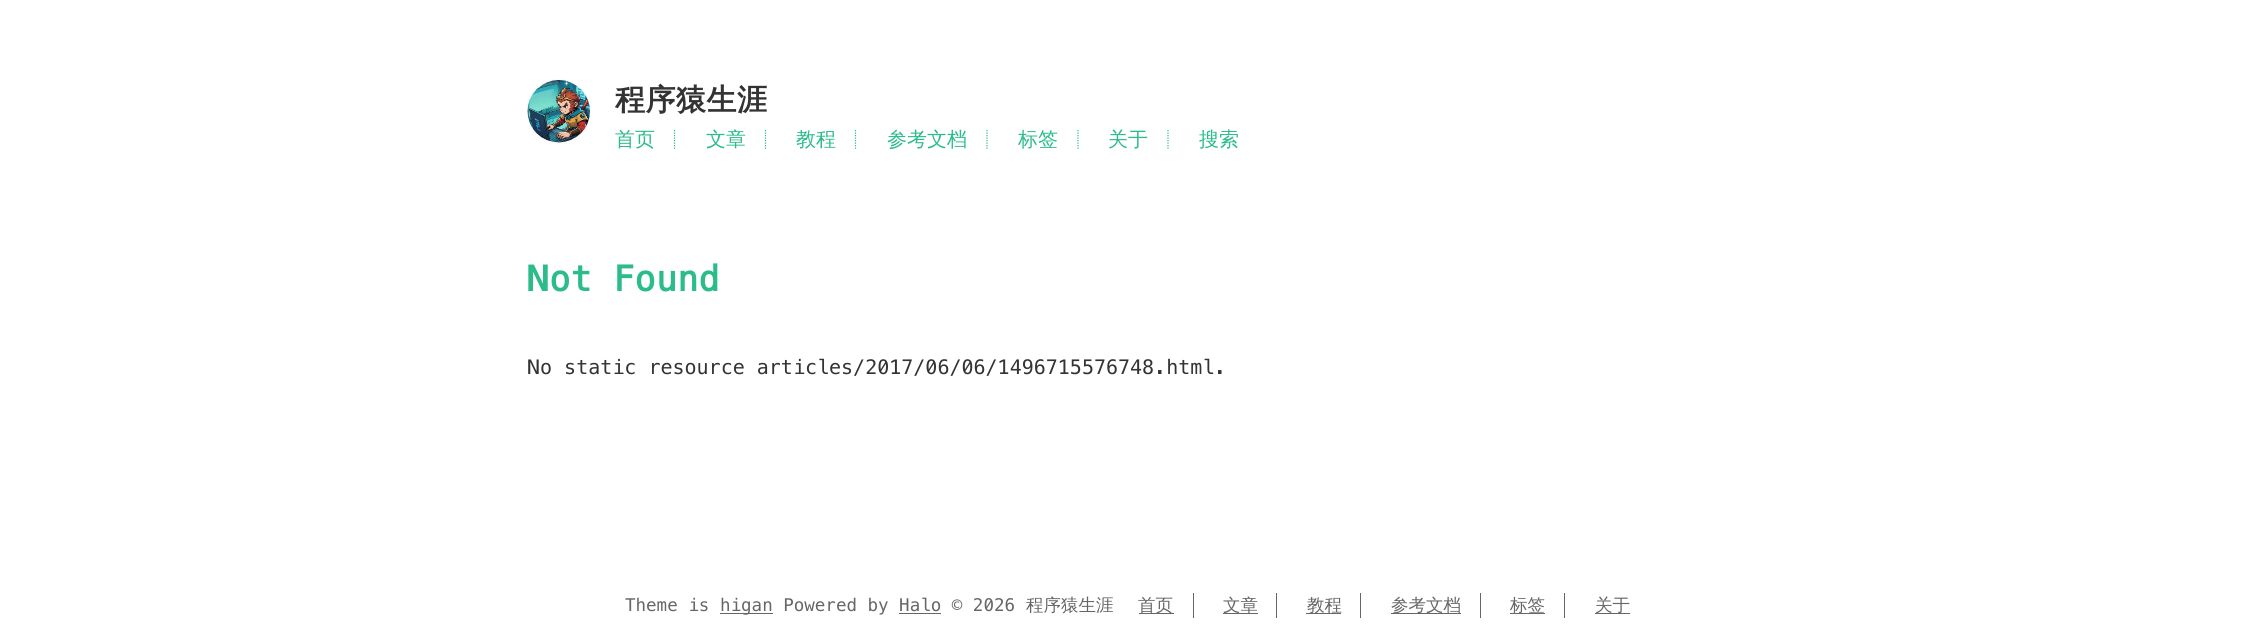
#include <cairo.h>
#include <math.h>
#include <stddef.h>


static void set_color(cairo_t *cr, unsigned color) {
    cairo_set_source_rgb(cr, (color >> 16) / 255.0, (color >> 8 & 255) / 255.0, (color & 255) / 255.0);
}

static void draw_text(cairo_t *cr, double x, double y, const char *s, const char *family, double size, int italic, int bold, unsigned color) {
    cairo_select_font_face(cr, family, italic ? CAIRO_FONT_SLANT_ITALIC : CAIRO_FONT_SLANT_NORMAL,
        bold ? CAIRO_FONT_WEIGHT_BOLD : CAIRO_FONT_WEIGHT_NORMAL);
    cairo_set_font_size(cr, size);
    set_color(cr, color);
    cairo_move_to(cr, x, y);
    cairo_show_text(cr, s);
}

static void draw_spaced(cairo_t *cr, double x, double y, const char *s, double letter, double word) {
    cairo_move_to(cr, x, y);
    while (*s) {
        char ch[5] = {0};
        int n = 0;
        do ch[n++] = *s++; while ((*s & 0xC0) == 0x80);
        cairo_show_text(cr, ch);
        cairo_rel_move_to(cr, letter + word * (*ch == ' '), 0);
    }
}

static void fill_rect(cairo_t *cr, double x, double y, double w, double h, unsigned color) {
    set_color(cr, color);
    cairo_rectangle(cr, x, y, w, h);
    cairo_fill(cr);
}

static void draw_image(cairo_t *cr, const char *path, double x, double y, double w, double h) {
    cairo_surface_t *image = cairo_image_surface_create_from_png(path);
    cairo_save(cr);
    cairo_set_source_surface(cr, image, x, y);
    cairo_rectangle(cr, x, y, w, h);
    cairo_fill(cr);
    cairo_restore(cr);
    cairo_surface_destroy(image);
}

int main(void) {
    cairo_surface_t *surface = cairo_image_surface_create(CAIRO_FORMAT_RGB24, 2254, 642);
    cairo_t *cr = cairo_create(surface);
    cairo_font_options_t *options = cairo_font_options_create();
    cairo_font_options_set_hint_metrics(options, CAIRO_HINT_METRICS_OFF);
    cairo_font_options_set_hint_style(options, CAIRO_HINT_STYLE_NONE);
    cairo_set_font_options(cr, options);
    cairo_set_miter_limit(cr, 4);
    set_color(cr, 0xFFFFFF);
    cairo_paint(cr);
    cairo_arc(cr, 558.5, 111.5, 32, 0, 2 * M_PI);
    set_color(cr, 0xFAFAFA);
    cairo_set_line_width(cr, 1);
    cairo_stroke(cr);
    draw_image(cr, "assets/img1.png", 527, 80, 64, 63);
    cairo_select_font_face(cr, "WenQuanYi Zen Hei", CAIRO_FONT_SLANT_NORMAL, CAIRO_FONT_WEIGHT_BOLD);
    cairo_set_font_size(cr, 30);
    set_color(cr, 0x333333);
    draw_spaced(cr, 615, 110, "程序猿生涯", 0.5, 0);
    cairo_new_path(cr);
    cairo_move_to(cr, 674.5, 130);
    cairo_line_to(cr, 674.5, 150);
    set_color(cr, 0x2BBC8A);
    cairo_set_line_width(cr, 1.2);
    cairo_set_dash(cr, (double[]){1.25, 1.25}, 2, 0);
    cairo_stroke(cr);
    draw_text(cr, 615, 146, "首页", "WenQuanYi Zen Hei Medium", 20, 0, 0, 0x2BBC8A);
    cairo_new_path(cr);
    cairo_move_to(cr, 765.5, 130);
    cairo_line_to(cr, 765.5, 150);
    cairo_stroke(cr);
    draw_text(cr, 706, 146, "文章", "WenQuanYi Zen Hei Medium", 20, 0, 0, 0x2BBC8A);
    cairo_new_path(cr);
    cairo_move_to(cr, 855.5, 130);
    cairo_line_to(cr, 855.5, 150);
    cairo_stroke(cr);
    draw_text(cr, 796, 146, "教程", "WenQuanYi Zen Hei Medium", 20, 0, 0, 0x2BBC8A);
    cairo_new_path(cr);
    cairo_move_to(cr, 987, 130);
    cairo_line_to(cr, 987, 150);
    cairo_stroke(cr);
    draw_text(cr, 887, 146, "参考文档", "WenQuanYi Zen Hei Medium", 20, 0, 0, 0x2BBC8A);
    cairo_new_path(cr);
    cairo_move_to(cr, 1078, 130);
    cairo_line_to(cr, 1078, 150);
    cairo_stroke(cr);
    draw_text(cr, 1018, 146, "标签", "WenQuanYi Zen Hei Medium", 20, 0, 0, 0x2BBC8A);
    cairo_new_path(cr);
    cairo_move_to(cr, 1168, 130);
    cairo_line_to(cr, 1168, 150);
    cairo_stroke(cr);
    draw_text(cr, 1108, 146, "关于", "WenQuanYi Zen Hei Medium", 20, 0, 0, 0x2BBC8A);
    draw_text(cr, 1199, 146, "搜索", "WenQuanYi Zen Hei Medium", 20, 0, 0, 0x2BBC8A);
    cairo_select_font_face(cr, "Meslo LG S", CAIRO_FONT_SLANT_NORMAL, CAIRO_FONT_WEIGHT_BOLD);
    cairo_set_font_size(cr, 35);
    draw_spaced(cr, 528, 291, "Not Found", 0.25, 0);
    draw_text(cr, 528, 374, "No static resource articles/2017/06/06/1496715576748.html.", "Meslo LG S", 20, 0, 0, 0x333333);
    draw_text(cr, 625, 611, "Theme is", "Meslo LG S", 17.5, 0, 0, 0x666666);
    fill_rect(cr, 720, 613, 53, 1, 0x666666);
    draw_text(cr, 720, 611, "higan Powered by Halo © 2026", "Meslo LG S", 17.5, 0, 0, 0x666666);
    fill_rect(cr, 899, 613, 42, 1, 0x666666);
    draw_text(cr, 1026, 611, "程序猿生涯", "WenQuanYi Zen Hei Medium", 17.5, 0, 0, 0x666666);
    fill_rect(cr, 1193, 593, 1, 25, 0x666666);
    fill_rect(cr, 1139, 613, 35, 1, 0x666666);
    draw_text(cr, 1138, 611, "首页", "WenQuanYi Zen Hei Medium", 17.5, 0, 0, 0x666666);
    fill_rect(cr, 1276, 593, 1, 25, 0x666666);
    fill_rect(cr, 1223, 613, 35, 1, 0x666666);
    draw_text(cr, 1223, 611, "文章", "WenQuanYi Zen Hei Medium", 17.5, 0, 0, 0x666666);
    fill_rect(cr, 1360, 593, 1, 25, 0x666666);
    fill_rect(cr, 1306, 613, 35, 1, 0x666666);
    draw_text(cr, 1307, 611, "教程", "WenQuanYi Zen Hei Medium", 17.5, 0, 0, 0x666666);
    fill_rect(cr, 1480, 593, 1, 25, 0x666666);
    fill_rect(cr, 1391, 613, 70, 1, 0x666666);
    draw_text(cr, 1391, 611, "参考文档", "WenQuanYi Zen Hei Medium", 17.5, 0, 0, 0x666666);
    fill_rect(cr, 1564, 593, 1, 25, 0x666666);
    fill_rect(cr, 1510, 613, 35, 1, 0x666666);
    draw_text(cr, 1510, 611, "标签", "WenQuanYi Zen Hei Medium", 17.5, 0, 0, 0x666666);
    fill_rect(cr, 1595, 613, 35, 1, 0x666666);
    draw_text(cr, 1595, 611, "关于", "WenQuanYi Zen Hei Medium", 17.5, 0, 0, 0x666666);
    cairo_surface_write_to_png(surface, "output.png");
    cairo_font_options_destroy(options);
    cairo_destroy(cr);
    cairo_surface_destroy(surface);
    return 0;
}
